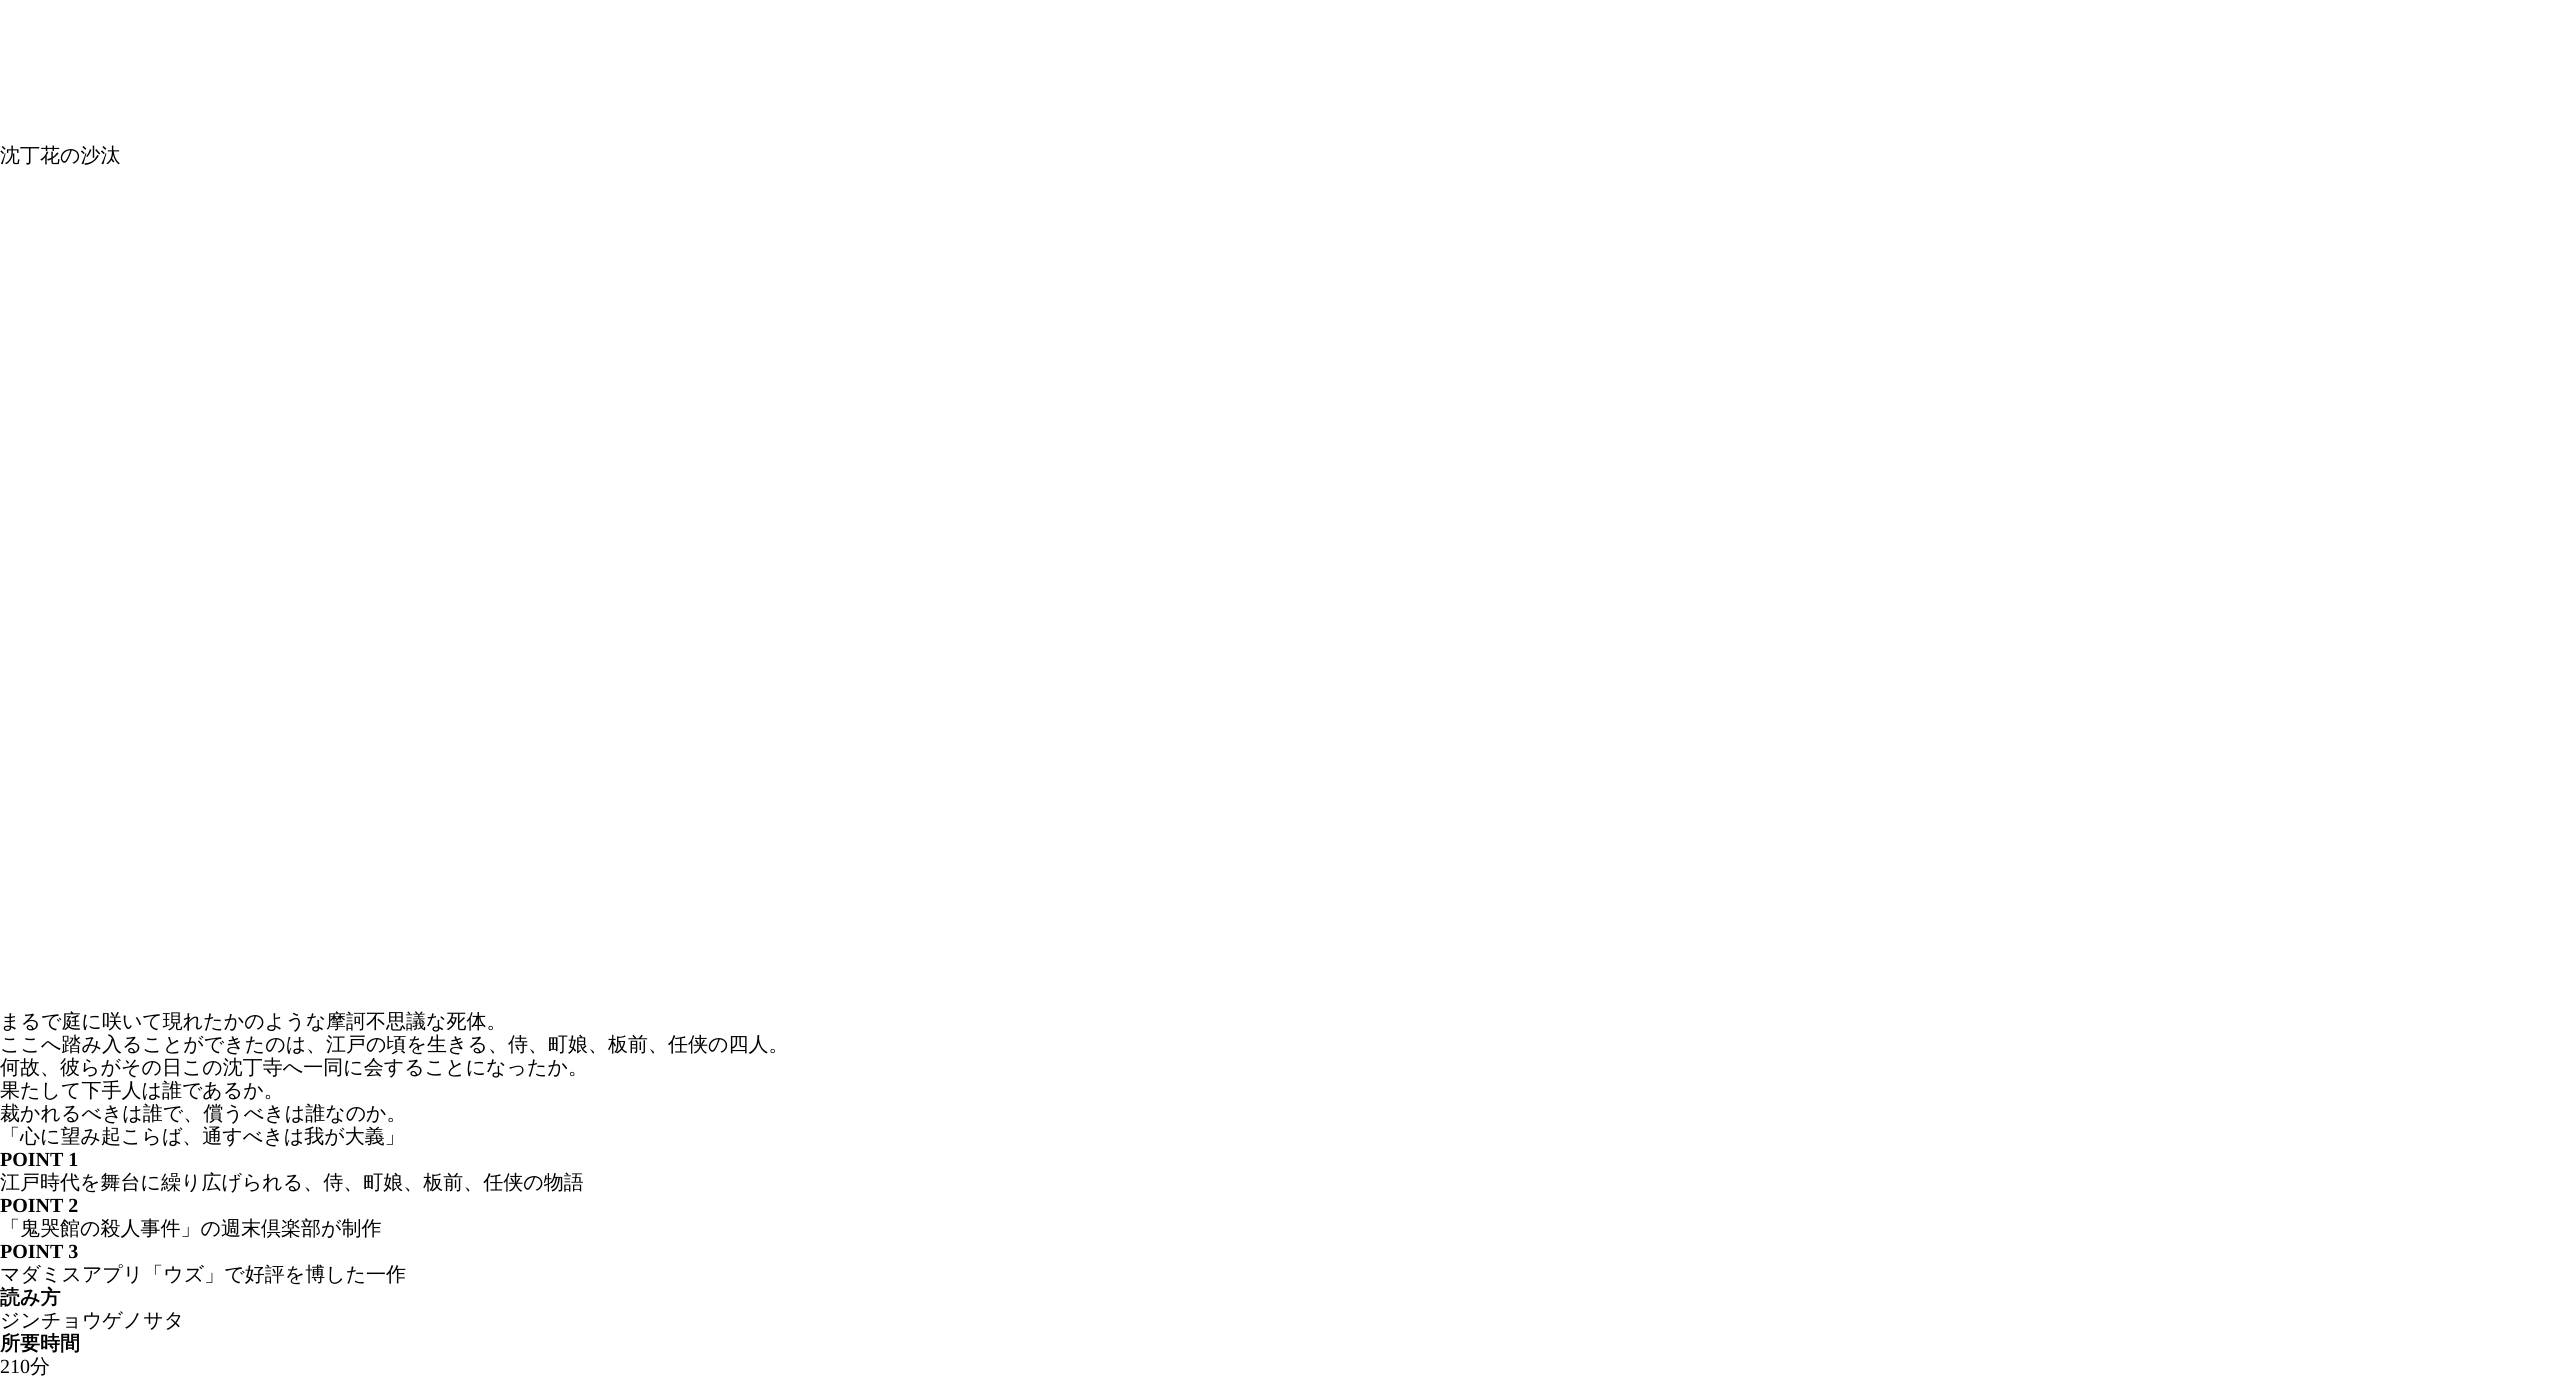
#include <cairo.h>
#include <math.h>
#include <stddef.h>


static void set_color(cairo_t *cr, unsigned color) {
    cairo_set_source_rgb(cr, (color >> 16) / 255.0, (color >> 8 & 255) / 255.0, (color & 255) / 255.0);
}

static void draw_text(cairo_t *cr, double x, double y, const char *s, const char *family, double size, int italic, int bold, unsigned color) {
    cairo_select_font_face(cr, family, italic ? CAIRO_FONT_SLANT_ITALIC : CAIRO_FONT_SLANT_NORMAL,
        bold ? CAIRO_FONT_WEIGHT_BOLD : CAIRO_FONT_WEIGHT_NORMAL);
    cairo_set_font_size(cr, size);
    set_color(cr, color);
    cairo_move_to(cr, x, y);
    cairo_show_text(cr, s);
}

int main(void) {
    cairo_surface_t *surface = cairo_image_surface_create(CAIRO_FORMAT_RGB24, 2574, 1377);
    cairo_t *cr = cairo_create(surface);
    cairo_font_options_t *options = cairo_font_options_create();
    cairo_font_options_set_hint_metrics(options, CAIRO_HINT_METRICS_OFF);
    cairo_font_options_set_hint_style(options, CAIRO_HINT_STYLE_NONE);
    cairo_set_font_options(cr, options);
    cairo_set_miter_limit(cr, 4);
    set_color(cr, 0xFFFFFF);
    cairo_paint(cr);
    draw_text(cr, 0, 162, "沈丁花の沙汰", "WenQuanYi Zen Hei Medium", 20, 0, 0, 0x000000);
    draw_text(cr, 0, 1028, "まるで庭に咲いて現れたかのような摩訶不思議な死体。", "WenQuanYi Zen Hei Medium", 20, 0, 0, 0x000000);
    draw_text(cr, 0, 1051, "ここへ踏み入ることができたのは、江戸の頃を生きる、侍、町娘、板前、任侠の四人。", "WenQuanYi Zen Hei Medium", 20, 0, 0, 0x000000);
    draw_text(cr, 0, 1074, "何故、彼らがその日この沈丁寺へ一同に会することになったか。", "WenQuanYi Zen Hei Medium", 20, 0, 0, 0x000000);
    draw_text(cr, 0, 1097, "果たして下手人は誰であるか。", "WenQuanYi Zen Hei Medium", 20, 0, 0, 0x000000);
    draw_text(cr, 0, 1120, "裁かれるべきは誰で、償うべきは誰なのか。", "WenQuanYi Zen Hei Medium", 20, 0, 0, 0x000000);
    draw_text(cr, 0, 1143, "「心に望み起こらば、通すべきは我が大義」", "WenQuanYi Zen Hei Medium", 20, 0, 0, 0x000000);
    draw_text(cr, 0, 1166, "POINT 1", "Liberation Serif", 20, 0, 1, 0x000000);
    draw_text(cr, 0, 1189, "江戸時代を舞台に繰り広げられる、侍、町娘、板前、任侠の物語", "WenQuanYi Zen Hei Medium", 20, 0, 0, 0x000000);
    draw_text(cr, 0, 1212, "POINT 2", "Liberation Serif", 20, 0, 1, 0x000000);
    draw_text(cr, 0, 1235, "「鬼哭館の殺人事件」の週末倶楽部が制作", "WenQuanYi Zen Hei Medium", 20, 0, 0, 0x000000);
    draw_text(cr, 0, 1258, "POINT 3", "Liberation Serif", 20, 0, 1, 0x000000);
    draw_text(cr, 0, 1281, "マダミスアプリ「ウズ」で好評を博した一作", "WenQuanYi Zen Hei Medium", 20, 0, 0, 0x000000);
    draw_text(cr, 0, 1304, "読み方", "WenQuanYi Zen Hei", 20, 0, 1, 0x000000);
    draw_text(cr, 0, 1327, "ジンチョウゲノサタ", "WenQuanYi Zen Hei Medium", 20, 0, 0, 0x000000);
    draw_text(cr, 0, 1350, "所要時間", "WenQuanYi Zen Hei", 20, 0, 1, 0x000000);
    draw_text(cr, 0, 1373, "210", "Liberation Serif", 20, 0, 0, 0x000000);
    draw_text(cr, 30, 1373, "分", "WenQuanYi Zen Hei Medium", 20, 0, 0, 0x000000);
    cairo_surface_write_to_png(surface, "output.png");
    cairo_font_options_destroy(options);
    cairo_destroy(cr);
    cairo_surface_destroy(surface);
    return 0;
}
